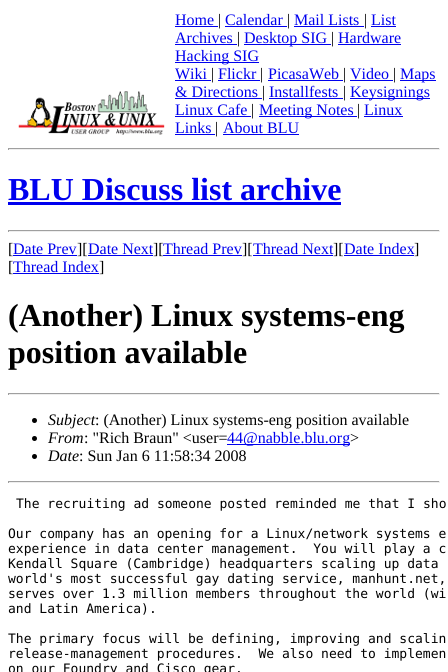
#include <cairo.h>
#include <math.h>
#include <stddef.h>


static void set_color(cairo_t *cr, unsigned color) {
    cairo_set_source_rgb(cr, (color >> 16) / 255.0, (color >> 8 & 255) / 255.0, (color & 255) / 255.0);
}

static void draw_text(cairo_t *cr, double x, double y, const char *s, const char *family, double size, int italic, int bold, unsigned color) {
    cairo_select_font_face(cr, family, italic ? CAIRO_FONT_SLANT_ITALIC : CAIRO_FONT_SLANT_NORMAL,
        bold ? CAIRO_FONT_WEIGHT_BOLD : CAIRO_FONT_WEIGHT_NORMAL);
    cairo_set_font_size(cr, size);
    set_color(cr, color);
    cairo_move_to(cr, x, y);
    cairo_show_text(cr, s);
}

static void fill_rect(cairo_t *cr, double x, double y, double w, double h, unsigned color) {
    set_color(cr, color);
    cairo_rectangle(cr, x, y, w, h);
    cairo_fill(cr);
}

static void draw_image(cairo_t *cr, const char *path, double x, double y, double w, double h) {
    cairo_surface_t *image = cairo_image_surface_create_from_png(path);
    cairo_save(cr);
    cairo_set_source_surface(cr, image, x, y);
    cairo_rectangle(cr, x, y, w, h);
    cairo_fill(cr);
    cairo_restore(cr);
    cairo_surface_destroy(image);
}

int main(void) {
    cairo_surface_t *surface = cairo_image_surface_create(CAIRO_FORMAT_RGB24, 448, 672);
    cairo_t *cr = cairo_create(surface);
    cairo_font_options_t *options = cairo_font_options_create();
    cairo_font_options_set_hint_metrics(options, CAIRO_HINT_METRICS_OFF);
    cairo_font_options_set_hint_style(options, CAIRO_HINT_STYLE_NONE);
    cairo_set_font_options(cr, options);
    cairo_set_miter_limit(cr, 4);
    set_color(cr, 0xFFFFFF);
    cairo_paint(cr);
    draw_image(cr, "assets/img1.png", 18, 91, 147, 44);
    draw_text(cr, 175, 25, "Home", "Liberation Serif", 16, 0, 0, 0x0000EE);
    fill_rect(cr, 175, 26, 43, 1, 0x0000EE);
    draw_text(cr, 218, 25, "|", "Liberation Serif", 16, 0, 0, 0x000000);
    draw_text(cr, 225, 25, "Calendar", "Liberation Serif", 16, 0, 0, 0x0000EE);
    fill_rect(cr, 225, 26, 62, 1, 0x0000EE);
    draw_text(cr, 287, 25, "|", "Liberation Serif", 16, 0, 0, 0x000000);
    draw_text(cr, 294, 25, "Mail Lists", "Liberation Serif", 16, 0, 0, 0x0000EE);
    fill_rect(cr, 294, 26, 70, 1, 0x0000EE);
    draw_text(cr, 364, 25, "|", "Liberation Serif", 16, 0, 0, 0x000000);
    draw_text(cr, 371, 25, "List", "Liberation Serif", 16, 0, 0, 0x0000EE);
    fill_rect(cr, 371, 26, 25, 1, 0x0000EE);
    draw_text(cr, 175, 43, "Archives", "Liberation Serif", 16, 0, 0, 0x0000EE);
    fill_rect(cr, 175, 44, 62, 1, 0x0000EE);
    draw_text(cr, 237, 43, "|", "Liberation Serif", 16, 0, 0, 0x000000);
    fill_rect(cr, 244, 44, 87, 1, 0x0000EE);
    draw_text(cr, 244, 43, "Desktop SIG", "Liberation Serif", 16, 0, 0, 0x0000EE);
    draw_text(cr, 331, 43, "|", "Liberation Serif", 16, 0, 0, 0x000000);
    draw_text(cr, 338, 43, "Hardware", "Liberation Serif", 16, 0, 0, 0x0000EE);
    fill_rect(cr, 338, 44, 63, 1, 0x0000EE);
    fill_rect(cr, 175, 62, 84, 1, 0x0000EE);
    draw_text(cr, 175, 61, "Hacking SIG", "Liberation Serif", 16, 0, 0, 0x0000EE);
    draw_text(cr, 175, 79, "Wiki", "Liberation Serif", 16, 0, 0, 0x0000EE);
    fill_rect(cr, 175, 80, 36, 1, 0x0000EE);
    draw_text(cr, 211, 79, "|", "Liberation Serif", 16, 0, 0, 0x000000);
    draw_text(cr, 218, 79, "Flickr", "Liberation Serif", 16, 0, 0, 0x0000EE);
    fill_rect(cr, 218, 80, 42, 1, 0x0000EE);
    draw_text(cr, 260, 79, "|", "Liberation Serif", 16, 0, 0, 0x000000);
    draw_text(cr, 268, 79, "PicasaWeb", "Liberation Serif", 16, 0, 0, 0x0000EE);
    fill_rect(cr, 268, 80, 75, 1, 0x0000EE);
    draw_text(cr, 343, 79, "|", "Liberation Serif", 16, 0, 0, 0x000000);
    draw_text(cr, 350, 79, "Video", "Liberation Serif", 16, 0, 0, 0x0000EE);
    fill_rect(cr, 350, 80, 43, 1, 0x0000EE);
    draw_text(cr, 393, 79, "|", "Liberation Serif", 16, 0, 0, 0x000000);
    fill_rect(cr, 400, 80, 36, 1, 0x0000EE);
    draw_text(cr, 400, 79, "Maps", "Liberation Serif", 16, 0, 0, 0x0000EE);
    draw_text(cr, 175, 97, "& Directions", "Liberation Serif", 16, 0, 0, 0x0000EE);
    fill_rect(cr, 175, 98, 87, 1, 0x0000EE);
    draw_text(cr, 262, 97, "|", "Liberation Serif", 16, 0, 0, 0x000000);
    draw_text(cr, 269, 97, "Installfests", "Liberation Serif", 16, 0, 0, 0x0000EE);
    fill_rect(cr, 269, 98, 74, 1, 0x0000EE);
    draw_text(cr, 343, 97, "|", "Liberation Serif", 16, 0, 0, 0x000000);
    fill_rect(cr, 350, 98, 80, 1, 0x0000EE);
    draw_text(cr, 350, 97, "Keysignings", "Liberation Serif", 16, 0, 0, 0x0000EE);
    draw_text(cr, 175, 115, "Linux Cafe", "Liberation Serif", 16, 0, 0, 0x0000EE);
    fill_rect(cr, 175, 116, 76, 1, 0x0000EE);
    draw_text(cr, 251, 115, "|", "Liberation Serif", 16, 0, 0, 0x000000);
    fill_rect(cr, 259, 116, 98, 1, 0x0000EE);
    draw_text(cr, 259, 115, "Meeting Notes", "Liberation Serif", 16, 0, 0, 0x0000EE);
    draw_text(cr, 357, 115, "|", "Liberation Serif", 16, 0, 0, 0x000000);
    draw_text(cr, 364, 115, "Linux", "Liberation Serif", 16, 0, 0, 0x0000EE);
    fill_rect(cr, 364, 116, 39, 1, 0x0000EE);
    draw_text(cr, 175, 133, "Links", "Liberation Serif", 16, 0, 0, 0x0000EE);
    fill_rect(cr, 175, 134, 40, 1, 0x0000EE);
    draw_text(cr, 215, 133, "|", "Liberation Serif", 16, 0, 0, 0x000000);
    draw_text(cr, 223, 133, "About BLU", "Liberation Serif", 16, 0, 0, 0x0000EE);
    fill_rect(cr, 223, 134, 76, 1, 0x0000EE);
    fill_rect(cr, 8, 148, 432, 1, 0x9F9F9F);
    fill_rect(cr, 439, 148, 1, 2, 0xEEEEEE);
    fill_rect(cr, 8, 149, 432, 1, 0xEEEEEE);
    fill_rect(cr, 8, 148, 1, 2, 0x9F9F9F);
    draw_text(cr, 8, 200, "BLU Discuss list archive", "Liberation Serif", 32, 0, 1, 0x0000EE);
    fill_rect(cr, 8, 202, 333, 3, 0x0000EE);
    fill_rect(cr, 8, 230, 432, 1, 0x9F9F9F);
    fill_rect(cr, 439, 230, 1, 2, 0xEEEEEE);
    fill_rect(cr, 8, 231, 432, 1, 0xEEEEEE);
    fill_rect(cr, 8, 230, 1, 2, 0x9F9F9F);
    draw_text(cr, 8, 254, "[", "Liberation Serif", 16, 0, 0, 0x000000);
    draw_text(cr, 13, 254, "Date Prev", "Liberation Serif", 16, 0, 0, 0x0000EE);
    fill_rect(cr, 13, 255, 64, 1, 0x0000EE);
    draw_text(cr, 77, 254, "][", "Liberation Serif", 16, 0, 0, 0x000000);
    draw_text(cr, 88, 254, "Date Next", "Liberation Serif", 16, 0, 0, 0x0000EE);
    fill_rect(cr, 88, 255, 65, 1, 0x0000EE);
    draw_text(cr, 153, 254, "][", "Liberation Serif", 16, 0, 0, 0x000000);
    draw_text(cr, 163, 254, "Thread Prev", "Liberation Serif", 16, 0, 0, 0x0000EE);
    fill_rect(cr, 163, 255, 79, 1, 0x0000EE);
    draw_text(cr, 242, 254, "][", "Liberation Serif", 16, 0, 0, 0x000000);
    draw_text(cr, 253, 254, "Thread Next", "Liberation Serif", 16, 0, 0, 0x0000EE);
    fill_rect(cr, 253, 255, 80, 1, 0x0000EE);
    draw_text(cr, 333, 254, "][", "Liberation Serif", 16, 0, 0, 0x000000);
    draw_text(cr, 344, 254, "Date Index", "Liberation Serif", 16, 0, 0, 0x0000EE);
    fill_rect(cr, 344, 255, 70, 1, 0x0000EE);
    draw_text(cr, 414, 254, "]", "Liberation Serif", 16, 0, 0, 0x000000);
    draw_text(cr, 8, 272, "[", "Liberation Serif", 16, 0, 0, 0x000000);
    draw_text(cr, 13, 272, "Thread Index", "Liberation Serif", 16, 0, 0, 0x0000EE);
    fill_rect(cr, 13, 273, 86, 1, 0x0000EE);
    draw_text(cr, 99, 272, "]", "Liberation Serif", 16, 0, 0, 0x000000);
    draw_text(cr, 8, 326, "(Another) Linux systems-eng", "Liberation Serif", 32, 0, 1, 0x000000);
    draw_text(cr, 8, 363, "position available", "Liberation Serif", 32, 0, 1, 0x000000);
    fill_rect(cr, 8, 393, 432, 1, 0x9F9F9F);
    fill_rect(cr, 439, 393, 1, 2, 0xEEEEEE);
    fill_rect(cr, 8, 394, 432, 1, 0xEEEEEE);
    fill_rect(cr, 8, 393, 1, 2, 0x9F9F9F);
    set_color(cr, 0x000000);
    cairo_new_path(cr);
    cairo_arc(cr, 34.5, 420.5, 2.5, 0, 2 * M_PI);
    cairo_fill(cr);
    draw_text(cr, 48, 425, "Subject", "Liberation Serif", 16, 1, 0, 0x000000);
    draw_text(cr, 95, 425, ": (Another) Linux systems-eng position available", "Liberation Serif", 16, 0, 0, 0x000000);
    cairo_new_path(cr);
    cairo_arc(cr, 34.5, 438.5, 2.5, 0, 2 * M_PI);
    cairo_fill(cr);
    draw_text(cr, 48, 443, "From", "Liberation Serif", 16, 1, 0, 0x000000);
    draw_text(cr, 84, 443, ": \"Rich Braun\" <user=", "Liberation Serif", 16, 0, 0, 0x000000);
    fill_rect(cr, 227, 444, 123, 1, 0x0000EE);
    draw_text(cr, 227, 443, "44@nabble.blu.org", "Liberation Serif", 16, 0, 0, 0x0000EE);
    draw_text(cr, 350, 443, ">", "Liberation Serif", 16, 0, 0, 0x000000);
    cairo_new_path(cr);
    cairo_arc(cr, 34.5, 456.5, 2.5, 0, 2 * M_PI);
    cairo_fill(cr);
    draw_text(cr, 48, 461, "Date", "Liberation Serif", 16, 1, 0, 0x000000);
    draw_text(cr, 79, 461, ": Sun Jan 6 11:58:34 2008", "Liberation Serif", 16, 0, 0, 0x000000);
    fill_rect(cr, 8, 481, 432, 1, 0x9F9F9F);
    fill_rect(cr, 439, 481, 1, 2, 0xEEEEEE);
    fill_rect(cr, 8, 482, 432, 1, 0xEEEEEE);
    fill_rect(cr, 8, 481, 1, 2, 0x9F9F9F);
    draw_text(cr, 16, 508, "The recruiting ad someone posted reminded me that I sho", "DejaVu Sans Mono", 13, 0, 0, 0x000000);
    draw_text(cr, 8, 538, "Our company has an opening for a Linux/network systems e", "DejaVu Sans Mono", 13, 0, 0, 0x000000);
    draw_text(cr, 8, 553, "experience in data center management.  You will play a c", "DejaVu Sans Mono", 13, 0, 0, 0x000000);
    draw_text(cr, 8, 568, "Kendall Square (Cambridge) headquarters scaling up data", "DejaVu Sans Mono", 13, 0, 0, 0x000000);
    draw_text(cr, 8, 583, "world's most successful gay dating service, manhunt.net,", "DejaVu Sans Mono", 13, 0, 0, 0x000000);
    draw_text(cr, 8, 598, "serves over 1.3 million members throughout the world (wi", "DejaVu Sans Mono", 13, 0, 0, 0x000000);
    draw_text(cr, 8, 613, "and Latin America).", "DejaVu Sans Mono", 13, 0, 0, 0x000000);
    draw_text(cr, 8, 643, "The primary focus will be defining, improving and scalin", "DejaVu Sans Mono", 13, 0, 0, 0x000000);
    draw_text(cr, 8, 658, "release-management procedures.  We also need to implemen", "DejaVu Sans Mono", 13, 0, 0, 0x000000);
    draw_text(cr, 8, 673, "on our Foundry and Cisco gear.", "DejaVu Sans Mono", 13, 0, 0, 0x000000);
    cairo_surface_write_to_png(surface, "output.png");
    cairo_font_options_destroy(options);
    cairo_destroy(cr);
    cairo_surface_destroy(surface);
    return 0;
}
